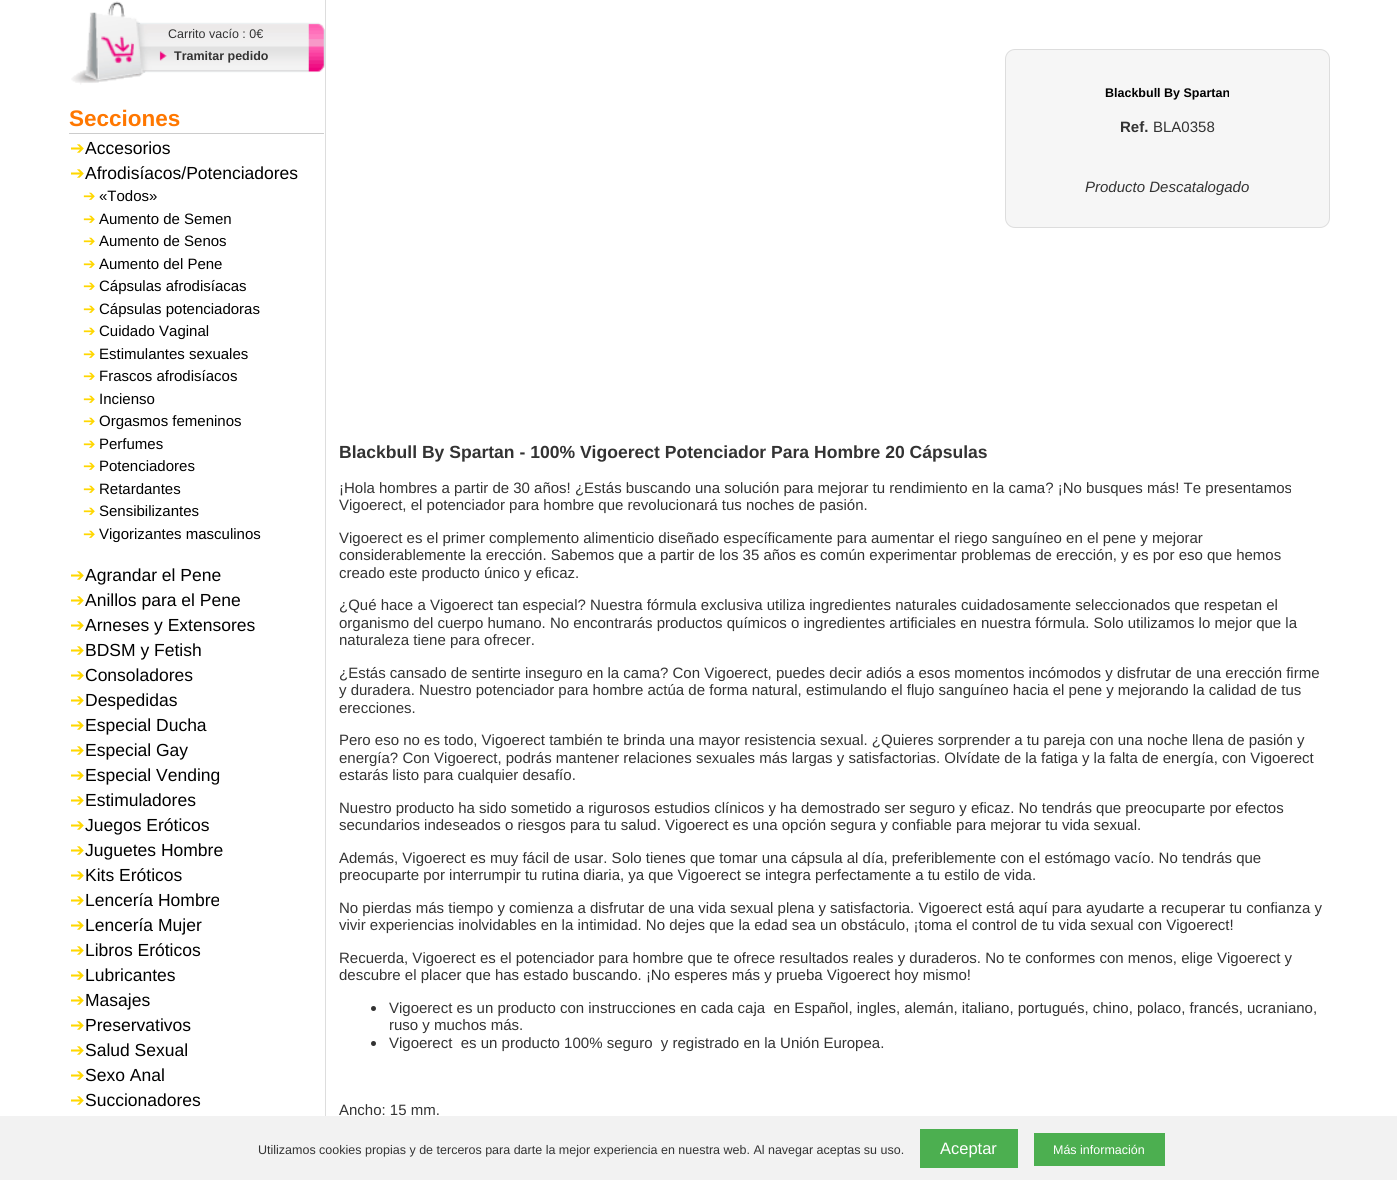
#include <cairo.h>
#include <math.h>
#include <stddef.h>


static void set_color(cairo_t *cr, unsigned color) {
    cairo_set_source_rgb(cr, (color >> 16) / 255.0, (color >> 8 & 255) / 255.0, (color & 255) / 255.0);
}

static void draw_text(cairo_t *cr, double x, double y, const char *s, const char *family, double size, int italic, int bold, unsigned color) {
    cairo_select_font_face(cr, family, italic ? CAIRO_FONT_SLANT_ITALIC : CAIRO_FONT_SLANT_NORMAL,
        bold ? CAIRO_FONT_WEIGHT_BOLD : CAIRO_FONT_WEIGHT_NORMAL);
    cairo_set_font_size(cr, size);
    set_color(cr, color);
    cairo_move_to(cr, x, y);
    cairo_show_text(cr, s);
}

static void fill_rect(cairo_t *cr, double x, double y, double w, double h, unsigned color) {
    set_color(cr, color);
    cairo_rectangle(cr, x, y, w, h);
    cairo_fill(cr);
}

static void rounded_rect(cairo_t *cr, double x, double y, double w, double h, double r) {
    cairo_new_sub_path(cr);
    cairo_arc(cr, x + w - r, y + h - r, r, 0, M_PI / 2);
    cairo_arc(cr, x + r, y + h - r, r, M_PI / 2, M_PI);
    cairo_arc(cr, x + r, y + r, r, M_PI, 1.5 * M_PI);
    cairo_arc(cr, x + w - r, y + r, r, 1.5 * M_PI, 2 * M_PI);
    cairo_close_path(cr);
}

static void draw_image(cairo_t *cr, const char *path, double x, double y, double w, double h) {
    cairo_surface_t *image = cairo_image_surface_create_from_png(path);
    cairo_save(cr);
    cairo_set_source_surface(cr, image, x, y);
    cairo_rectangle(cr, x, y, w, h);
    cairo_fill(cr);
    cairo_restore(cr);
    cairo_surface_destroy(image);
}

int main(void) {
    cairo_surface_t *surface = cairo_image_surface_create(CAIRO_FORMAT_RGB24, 1397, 1180);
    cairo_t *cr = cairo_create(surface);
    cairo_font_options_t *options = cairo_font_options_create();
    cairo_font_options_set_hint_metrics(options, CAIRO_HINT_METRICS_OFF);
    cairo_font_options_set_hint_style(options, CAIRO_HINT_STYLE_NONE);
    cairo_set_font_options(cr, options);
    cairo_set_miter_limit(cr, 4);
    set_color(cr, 0xFFFFFF);
    cairo_paint(cr);
    fill_rect(cr, 325, 0, 1, 1116, 0xDDDDDD);
    draw_image(cr, "assets/img1.png", 71, 1, 254, 84);
    draw_text(cr, 168, 38, "Carrito vacío : 0€", "Liberation Sans", 12.5, 0, 0, 0x333333);
    draw_text(cr, 174, 60, "Tramitar pedido", "Liberation Sans", 12.5, 0, 1, 0x333333);
    fill_rect(cr, 69, 133, 255, 1, 0xCCCCCC);
    draw_text(cr, 69, 126, "Secciones", "Liberation Sans", 22.5, 0, 1, 0xFF7700);
    draw_text(cr, 70, 154, "➔", "DejaVu Sans", 17.5, 0, 0, 0xFFD700);
    draw_text(cr, 85, 154, "Accesorios", "Liberation Sans", 17.5, 0, 0, 0x000000);
    draw_text(cr, 70, 179, "➔", "DejaVu Sans", 17.5, 0, 0, 0xFFD700);
    draw_text(cr, 85, 179, "Afrodisíacos/Potenciadores", "Liberation Sans", 17.5, 0, 0, 0x000000);
    draw_text(cr, 83, 201, "➔", "DejaVu Sans", 15, 0, 0, 0xFFD700);
    draw_text(cr, 99, 201, "«Todos»", "Liberation Sans", 15, 0, 0, 0x000000);
    draw_text(cr, 83, 224, "➔", "DejaVu Sans", 15, 0, 0, 0xFFD700);
    draw_text(cr, 99, 224, "Aumento de Semen", "Liberation Sans", 15, 0, 0, 0x000000);
    draw_text(cr, 83, 246, "➔", "DejaVu Sans", 15, 0, 0, 0xFFD700);
    draw_text(cr, 99, 246, "Aumento de Senos", "Liberation Sans", 15, 0, 0, 0x000000);
    draw_text(cr, 83, 269, "➔", "DejaVu Sans", 15, 0, 0, 0xFFD700);
    draw_text(cr, 99, 269, "Aumento del Pene", "Liberation Sans", 15, 0, 0, 0x000000);
    draw_text(cr, 83, 291, "➔", "DejaVu Sans", 15, 0, 0, 0xFFD700);
    draw_text(cr, 99, 291, "Cápsulas afrodisíacas", "Liberation Sans", 15, 0, 0, 0x000000);
    draw_text(cr, 83, 314, "➔", "DejaVu Sans", 15, 0, 0, 0xFFD700);
    draw_text(cr, 99, 314, "Cápsulas potenciadoras", "Liberation Sans", 15, 0, 0, 0x000000);
    draw_text(cr, 83, 336, "➔", "DejaVu Sans", 15, 0, 0, 0xFFD700);
    draw_text(cr, 99, 336, "Cuidado Vaginal", "Liberation Sans", 15, 0, 0, 0x000000);
    draw_text(cr, 83, 359, "➔", "DejaVu Sans", 15, 0, 0, 0xFFD700);
    draw_text(cr, 99, 359, "Estimulantes sexuales", "Liberation Sans", 15, 0, 0, 0x000000);
    draw_text(cr, 83, 381, "➔", "DejaVu Sans", 15, 0, 0, 0xFFD700);
    draw_text(cr, 99, 381, "Frascos afrodisíacos", "Liberation Sans", 15, 0, 0, 0x000000);
    draw_text(cr, 83, 404, "➔", "DejaVu Sans", 15, 0, 0, 0xFFD700);
    draw_text(cr, 99, 404, "Incienso", "Liberation Sans", 15, 0, 0, 0x000000);
    draw_text(cr, 83, 426, "➔", "DejaVu Sans", 15, 0, 0, 0xFFD700);
    draw_text(cr, 99, 426, "Orgasmos femeninos", "Liberation Sans", 15, 0, 0, 0x000000);
    draw_text(cr, 83, 449, "➔", "DejaVu Sans", 15, 0, 0, 0xFFD700);
    draw_text(cr, 99, 449, "Perfumes", "Liberation Sans", 15, 0, 0, 0x000000);
    draw_text(cr, 83, 471, "➔", "DejaVu Sans", 15, 0, 0, 0xFFD700);
    draw_text(cr, 99, 471, "Potenciadores", "Liberation Sans", 15, 0, 0, 0x000000);
    draw_text(cr, 83, 494, "➔", "DejaVu Sans", 15, 0, 0, 0xFFD700);
    draw_text(cr, 99, 494, "Retardantes", "Liberation Sans", 15, 0, 0, 0x000000);
    draw_text(cr, 83, 516, "➔", "DejaVu Sans", 15, 0, 0, 0xFFD700);
    draw_text(cr, 99, 516, "Sensibilizantes", "Liberation Sans", 15, 0, 0, 0x000000);
    draw_text(cr, 83, 539, "➔", "DejaVu Sans", 15, 0, 0, 0xFFD700);
    draw_text(cr, 99, 539, "Vigorizantes masculinos", "Liberation Sans", 15, 0, 0, 0x000000);
    draw_text(cr, 70, 581, "➔", "DejaVu Sans", 17.5, 0, 0, 0xFFD700);
    draw_text(cr, 85, 581, "Agrandar el Pene", "Liberation Sans", 17.5, 0, 0, 0x000000);
    draw_text(cr, 70, 606, "➔", "DejaVu Sans", 17.5, 0, 0, 0xFFD700);
    draw_text(cr, 85, 606, "Anillos para el Pene", "Liberation Sans", 17.5, 0, 0, 0x000000);
    draw_text(cr, 70, 631, "➔", "DejaVu Sans", 17.5, 0, 0, 0xFFD700);
    draw_text(cr, 85, 631, "Arneses y Extensores", "Liberation Sans", 17.5, 0, 0, 0x000000);
    draw_text(cr, 70, 656, "➔", "DejaVu Sans", 17.5, 0, 0, 0xFFD700);
    draw_text(cr, 85, 656, "BDSM y Fetish", "Liberation Sans", 17.5, 0, 0, 0x000000);
    draw_text(cr, 70, 681, "➔", "DejaVu Sans", 17.5, 0, 0, 0xFFD700);
    draw_text(cr, 85, 681, "Consoladores", "Liberation Sans", 17.5, 0, 0, 0x000000);
    draw_text(cr, 70, 706, "➔", "DejaVu Sans", 17.5, 0, 0, 0xFFD700);
    draw_text(cr, 85, 706, "Despedidas", "Liberation Sans", 17.5, 0, 0, 0x000000);
    draw_text(cr, 70, 731, "➔", "DejaVu Sans", 17.5, 0, 0, 0xFFD700);
    draw_text(cr, 85, 731, "Especial Ducha", "Liberation Sans", 17.5, 0, 0, 0x000000);
    draw_text(cr, 70, 756, "➔", "DejaVu Sans", 17.5, 0, 0, 0xFFD700);
    draw_text(cr, 85, 756, "Especial Gay", "Liberation Sans", 17.5, 0, 0, 0x000000);
    draw_text(cr, 70, 781, "➔", "DejaVu Sans", 17.5, 0, 0, 0xFFD700);
    draw_text(cr, 85, 781, "Especial Vending", "Liberation Sans", 17.5, 0, 0, 0x000000);
    draw_text(cr, 70, 806, "➔", "DejaVu Sans", 17.5, 0, 0, 0xFFD700);
    draw_text(cr, 85, 806, "Estimuladores", "Liberation Sans", 17.5, 0, 0, 0x000000);
    draw_text(cr, 70, 831, "➔", "DejaVu Sans", 17.5, 0, 0, 0xFFD700);
    draw_text(cr, 85, 831, "Juegos Eróticos", "Liberation Sans", 17.5, 0, 0, 0x000000);
    draw_text(cr, 70, 856, "➔", "DejaVu Sans", 17.5, 0, 0, 0xFFD700);
    draw_text(cr, 85, 856, "Juguetes Hombre", "Liberation Sans", 17.5, 0, 0, 0x000000);
    draw_text(cr, 70, 881, "➔", "DejaVu Sans", 17.5, 0, 0, 0xFFD700);
    draw_text(cr, 85, 881, "Kits Eróticos", "Liberation Sans", 17.5, 0, 0, 0x000000);
    draw_text(cr, 70, 906, "➔", "DejaVu Sans", 17.5, 0, 0, 0xFFD700);
    draw_text(cr, 85, 906, "Lencería Hombre", "Liberation Sans", 17.5, 0, 0, 0x000000);
    draw_text(cr, 70, 931, "➔", "DejaVu Sans", 17.5, 0, 0, 0xFFD700);
    draw_text(cr, 85, 931, "Lencería Mujer", "Liberation Sans", 17.5, 0, 0, 0x000000);
    draw_text(cr, 70, 956, "➔", "DejaVu Sans", 17.5, 0, 0, 0xFFD700);
    draw_text(cr, 85, 956, "Libros Eróticos", "Liberation Sans", 17.5, 0, 0, 0x000000);
    draw_text(cr, 70, 981, "➔", "DejaVu Sans", 17.5, 0, 0, 0xFFD700);
    draw_text(cr, 85, 981, "Lubricantes", "Liberation Sans", 17.5, 0, 0, 0x000000);
    draw_text(cr, 70, 1006, "➔", "DejaVu Sans", 17.5, 0, 0, 0xFFD700);
    draw_text(cr, 85, 1006, "Masajes", "Liberation Sans", 17.5, 0, 0, 0x000000);
    draw_text(cr, 70, 1031, "➔", "DejaVu Sans", 17.5, 0, 0, 0xFFD700);
    draw_text(cr, 85, 1031, "Preservativos", "Liberation Sans", 17.5, 0, 0, 0x000000);
    draw_text(cr, 70, 1056, "➔", "DejaVu Sans", 17.5, 0, 0, 0xFFD700);
    draw_text(cr, 85, 1056, "Salud Sexual", "Liberation Sans", 17.5, 0, 0, 0x000000);
    draw_text(cr, 70, 1081, "➔", "DejaVu Sans", 17.5, 0, 0, 0xFFD700);
    draw_text(cr, 85, 1081, "Sexo Anal", "Liberation Sans", 17.5, 0, 0, 0x000000);
    draw_text(cr, 70, 1106, "➔", "DejaVu Sans", 17.5, 0, 0, 0xFFD700);
    draw_text(cr, 85, 1106, "Succionadores", "Liberation Sans", 17.5, 0, 0, 0x000000);
    set_color(cr, 0xF6F6F6);
    rounded_rect(cr, 1005.5, 49.5, 324, 178, 9.5);
    cairo_fill_preserve(cr);
    set_color(cr, 0xDDDDDD);
    cairo_set_line_width(cr, 1);
    cairo_stroke(cr);
    draw_text(cr, 1105, 97, "Blackbull By Spartan", "Liberation Sans", 12.5, 0, 1, 0x000000);
    draw_text(cr, 1120, 132, "Ref.", "Liberation Sans", 15, 0, 1, 0x333333);
    draw_text(cr, 1153, 132, "BLA0358", "Liberation Sans", 15, 0, 0, 0x333333);
    draw_text(cr, 1085, 192, "Producto Descatalogado", "Liberation Sans", 15, 1, 0, 0x333333);
    draw_text(cr, 339, 458, "Blackbull By Spartan - 100% Vigoerect Potenciador Para Hombre 20 Cápsulas", "Liberation Sans", 17.55, 0, 1, 0x333333);
    draw_text(cr, 339, 493, "¡Hola hombres a partir de 30 años! ¿Estás buscando una solución para mejorar tu rendimiento en la cama? ¡No busques más! Te presentamos", "Liberation Sans", 15, 0, 0, 0x333333);
    draw_text(cr, 339, 510, "Vigoerect, el potenciador para hombre que revolucionará tus noches de pasión.", "Liberation Sans", 15, 0, 0, 0x333333);
    draw_text(cr, 339, 543, "Vigoerect es el primer complemento alimenticio diseñado específicamente para aumentar el riego sanguíneo en el pene y mejorar", "Liberation Sans", 15, 0, 0, 0x333333);
    draw_text(cr, 339, 560, "considerablemente la erección. Sabemos que a partir de los 35 años es común experimentar problemas de erección, y es por eso que hemos", "Liberation Sans", 15, 0, 0, 0x333333);
    draw_text(cr, 339, 578, "creado este producto único y eficaz.", "Liberation Sans", 15, 0, 0, 0x333333);
    draw_text(cr, 339, 610, "¿Qué hace a Vigoerect tan especial? Nuestra fórmula exclusiva utiliza ingredientes naturales cuidadosamente seleccionados que respetan el", "Liberation Sans", 15, 0, 0, 0x333333);
    draw_text(cr, 339, 628, "organismo del cuerpo humano. No encontrarás productos químicos o ingredientes artificiales en nuestra fórmula. Solo utilizamos lo mejor que la", "Liberation Sans", 15, 0, 0, 0x333333);
    draw_text(cr, 339, 645, "naturaleza tiene para ofrecer.", "Liberation Sans", 15, 0, 0, 0x333333);
    draw_text(cr, 339, 678, "¿Estás cansado de sentirte inseguro en la cama? Con Vigoerect, puedes decir adiós a esos momentos incómodos y disfrutar de una erección firme", "Liberation Sans", 15, 0, 0, 0x333333);
    draw_text(cr, 339, 695, "y duradera. Nuestro potenciador para hombre actúa de forma natural, estimulando el flujo sanguíneo hacia el pene y mejorando la calidad de tus", "Liberation Sans", 15, 0, 0, 0x333333);
    draw_text(cr, 339, 713, "erecciones.", "Liberation Sans", 15, 0, 0, 0x333333);
    draw_text(cr, 339, 745, "Pero eso no es todo, Vigoerect también te brinda una mayor resistencia sexual. ¿Quieres sorprender a tu pareja con una noche llena de pasión y", "Liberation Sans", 15, 0, 0, 0x333333);
    draw_text(cr, 339, 763, "energía? Con Vigoerect, podrás mantener relaciones sexuales más largas y satisfactorias. Olvídate de la fatiga y la falta de energía, con Vigoerect", "Liberation Sans", 15, 0, 0, 0x333333);
    draw_text(cr, 339, 780, "estarás listo para cualquier desafío.", "Liberation Sans", 15, 0, 0, 0x333333);
    draw_text(cr, 339, 813, "Nuestro producto ha sido sometido a rigurosos estudios clínicos y ha demostrado ser seguro y eficaz. No tendrás que preocuparte por efectos", "Liberation Sans", 15, 0, 0, 0x333333);
    draw_text(cr, 339, 830, "secundarios indeseados o riesgos para tu salud. Vigoerect es una opción segura y confiable para mejorar tu vida sexual.", "Liberation Sans", 15, 0, 0, 0x333333);
    draw_text(cr, 339, 863, "Además, Vigoerect es muy fácil de usar. Solo tienes que tomar una cápsula al día, preferiblemente con el estómago vacío. No tendrás que", "Liberation Sans", 15, 0, 0, 0x333333);
    draw_text(cr, 339, 880, "preocuparte por interrumpir tu rutina diaria, ya que Vigoerect se integra perfectamente a tu estilo de vida.", "Liberation Sans", 15, 0, 0, 0x333333);
    draw_text(cr, 339, 913, "No pierdas más tiempo y comienza a disfrutar de una vida sexual plena y satisfactoria. Vigoerect está aquí para ayudarte a recuperar tu confianza y", "Liberation Sans", 15, 0, 0, 0x333333);
    draw_text(cr, 339, 930, "vivir experiencias inolvidables en la intimidad. No dejes que la edad sea un obstáculo, ¡toma el control de tu vida sexual con Vigoerect!", "Liberation Sans", 15, 0, 0, 0x333333);
    draw_text(cr, 339, 963, "Recuerda, Vigoerect es el potenciador para hombre que te ofrece resultados reales y duraderos. No te conformes con menos, elige Vigoerect y", "Liberation Sans", 15, 0, 0, 0x333333);
    draw_text(cr, 339, 980, "descubre el placer que has estado buscando. ¡No esperes más y prueba Vigoerect hoy mismo!", "Liberation Sans", 15, 0, 0, 0x333333);
    cairo_new_path(cr);
    cairo_arc(cr, 373.5, 1008.5, 2.5, 0, 2 * M_PI);
    cairo_fill(cr);
    draw_text(cr, 389, 1013, "Vigoerect es un producto con instrucciones en cada caja  en Español, ingles, alemán, italiano, portugués, chino, polaco, francés, ucraniano,", "Liberation Sans", 15, 0, 0, 0x333333);
    draw_text(cr, 389, 1030, "ruso y muchos más.", "Liberation Sans", 15, 0, 0, 0x333333);
    cairo_new_path(cr);
    cairo_arc(cr, 373.5, 1043.5, 2.5, 0, 2 * M_PI);
    cairo_fill(cr);
    draw_text(cr, 389, 1048, "Vigoerect  es un producto 100% seguro  y registrado en la Unión Europea.", "Liberation Sans", 15, 0, 0, 0x333333);
    draw_text(cr, 339, 1115, "Ancho: 15 mm.", "Liberation Sans", 15, 0, 0, 0x333333);
    fill_rect(cr, 0, 1116, 1397, 64, 0xF2F2F2);
    draw_text(cr, 258, 1154, "Utilizamos cookies propias y de terceros para darte la mejor experiencia en nuestra web. Al navegar aceptas su uso.", "Liberation Sans", 12.5, 0, 0, 0x333333);
    fill_rect(cr, 920, 1129, 98, 39, 0x4CAF50);
    draw_text(cr, 940, 1154, "Aceptar", "Liberation Sans", 16.5, 0, 0, 0xFFFFFF);
    fill_rect(cr, 1034, 1133, 131, 33, 0x4CAF50);
    draw_text(cr, 1053, 1154, "Más información", "Liberation Sans", 12.5, 0, 0, 0xFFFFFF);
    cairo_surface_write_to_png(surface, "output.png");
    cairo_font_options_destroy(options);
    cairo_destroy(cr);
    cairo_surface_destroy(surface);
    return 0;
}
